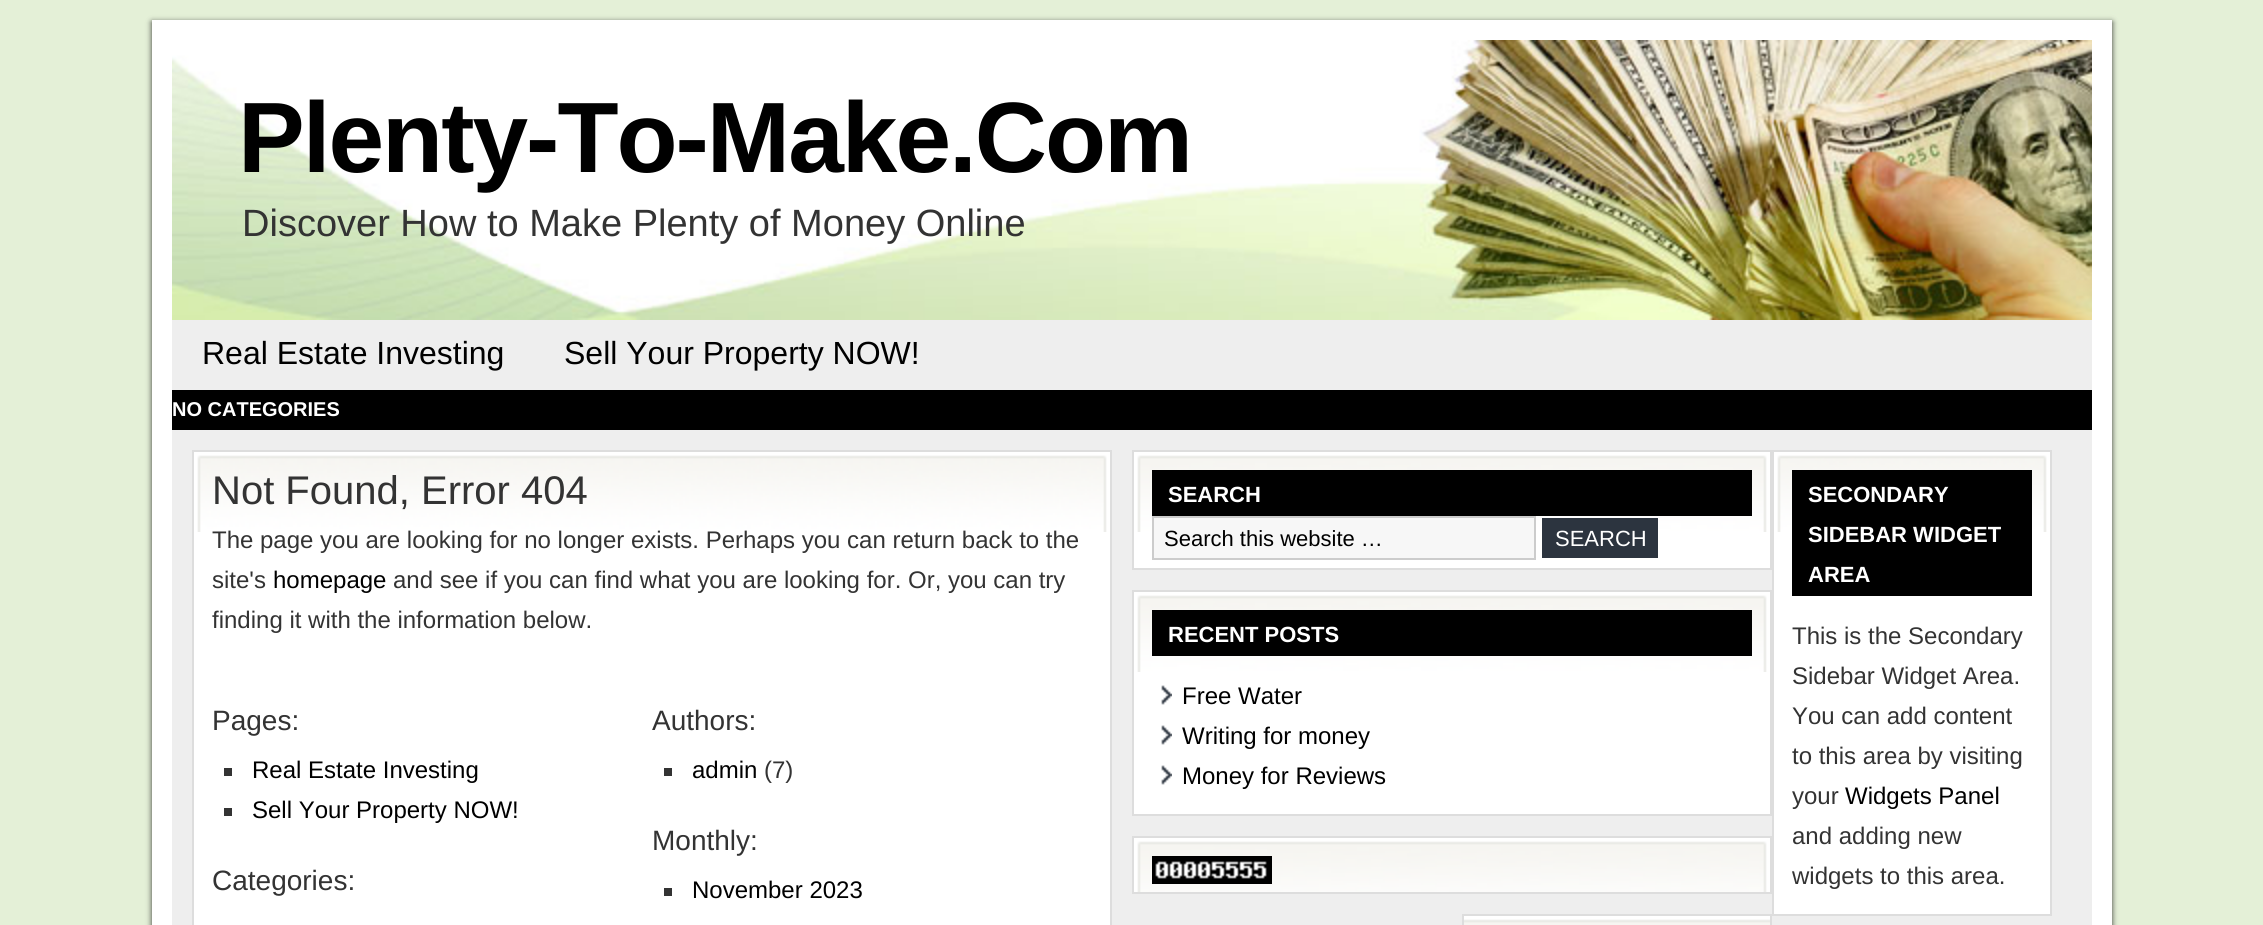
#include <cairo.h>
#include <math.h>
#include <stddef.h>


static void set_color(cairo_t *cr, unsigned color) {
    cairo_set_source_rgb(cr, (color >> 16) / 255.0, (color >> 8 & 255) / 255.0, (color & 255) / 255.0);
}

static void draw_text(cairo_t *cr, double x, double y, const char *s, const char *family, double size, int italic, int bold, unsigned color) {
    cairo_select_font_face(cr, family, italic ? CAIRO_FONT_SLANT_ITALIC : CAIRO_FONT_SLANT_NORMAL,
        bold ? CAIRO_FONT_WEIGHT_BOLD : CAIRO_FONT_WEIGHT_NORMAL);
    cairo_set_font_size(cr, size);
    set_color(cr, color);
    cairo_move_to(cr, x, y);
    cairo_show_text(cr, s);
}

static void draw_spaced(cairo_t *cr, double x, double y, const char *s, double letter, double word) {
    cairo_move_to(cr, x, y);
    while (*s) {
        char ch[5] = {0};
        int n = 0;
        do ch[n++] = *s++; while ((*s & 0xC0) == 0x80);
        cairo_show_text(cr, ch);
        cairo_rel_move_to(cr, letter + word * (*ch == ' '), 0);
    }
}

static void fill_rect(cairo_t *cr, double x, double y, double w, double h, unsigned color) {
    set_color(cr, color);
    cairo_rectangle(cr, x, y, w, h);
    cairo_fill(cr);
}

static void rounded_rect(cairo_t *cr, double x, double y, double w, double h, double r) {
    cairo_new_sub_path(cr);
    cairo_arc(cr, x + w - r, y + h - r, r, 0, M_PI / 2);
    cairo_arc(cr, x + r, y + h - r, r, M_PI / 2, M_PI);
    cairo_arc(cr, x + r, y + r, r, M_PI, 1.5 * M_PI);
    cairo_arc(cr, x + w - r, y + r, r, 1.5 * M_PI, 2 * M_PI);
    cairo_close_path(cr);
}

static void draw_shadow(cairo_t *cr, double x, double y, double w, double h, double r, double blur, double alpha) {
    cairo_push_group_with_content(cr, CAIRO_CONTENT_ALPHA);
    cairo_set_operator(cr, CAIRO_OPERATOR_SOURCE);
    for (int i = 15; i >= -15 && fmin(w, h) + blur * i / 3 > 0; i -= 2) {
        double e = blur * i / 6;
        cairo_set_source_rgba(cr, 0, 0, 0, alpha * erfc((i - 1) / 8.5) / 2);
        rounded_rect(cr, x - e, y - e, w + 2 * e, h + 2 * e, fmax(0, fmin(r + e + blur * .6, fmin(w, h) / 2 + e)));
        cairo_fill(cr);
    }
    cairo_pattern_t *soft = cairo_pop_group(cr);
    cairo_mask(cr, soft);
    cairo_pattern_destroy(soft);
}

static void draw_image(cairo_t *cr, const char *path, double x, double y, double w, double h) {
    cairo_surface_t *image = cairo_image_surface_create_from_png(path);
    cairo_save(cr);
    cairo_set_source_surface(cr, image, x, y);
    cairo_rectangle(cr, x, y, w, h);
    cairo_fill(cr);
    cairo_restore(cr);
    cairo_surface_destroy(image);
}

int main(void) {
    cairo_surface_t *surface = cairo_image_surface_create(CAIRO_FORMAT_RGB24, 2263, 925);
    cairo_t *cr = cairo_create(surface);
    cairo_font_options_t *options = cairo_font_options_create();
    cairo_font_options_set_hint_metrics(options, CAIRO_HINT_METRICS_OFF);
    cairo_font_options_set_hint_style(options, CAIRO_HINT_STYLE_NONE);
    cairo_set_font_options(cr, options);
    cairo_set_miter_limit(cr, 4);
    set_color(cr, 0xE4F0D7);
    cairo_paint(cr);
    set_color(cr, 0x333333);
    draw_shadow(cr, 152, 22, 1960, 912, 0, 3, 1);
    fill_rect(cr, 172, 320, 1920, 605, 0xEEEEEE);
    cairo_rectangle(cr, 162, 30, 1940, 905);
    set_color(cr, 0xFFFFFF);
    cairo_set_line_width(cr, 20);
    cairo_stroke(cr);
    draw_image(cr, "assets/img1.png", 172, 40, 1920, 280);
    cairo_select_font_face(cr, "Liberation Sans", CAIRO_FONT_SLANT_NORMAL, CAIRO_FONT_WEIGHT_BOLD);
    cairo_set_font_size(cr, 100);
    set_color(cr, 0x000000);
    draw_spaced(cr, 238, 172, "Plenty-To-Make.Com", -2, 0);
    draw_text(cr, 242, 236, "Discover How to Make Plenty of Money Online", "Liberation Sans", 38, 0, 0, 0x333333);
    draw_text(cr, 202, 364, "Real Estate Investing", "Liberation Sans", 32, 0, 0, 0x000000);
    draw_text(cr, 564, 364, "Sell Your Property NOW!", "Liberation Sans", 32, 0, 0, 0x000000);
    fill_rect(cr, 172, 390, 1920, 40, 0x000000);
    draw_text(cr, 172, 416, "NO CATEGORIES", "Liberation Sans", 20, 0, 1, 0xFFFFFF);
    fill_rect(cr, 194, 452, 916, 473, 0xFFFFFF);
    draw_image(cr, "assets/img2.png", 197, 455, 910, 77);
    cairo_rectangle(cr, 193, 451, 918, 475);
    set_color(cr, 0xDDDDDD);
    cairo_set_line_width(cr, 2);
    cairo_stroke(cr);
    draw_text(cr, 212, 504, "Not Found, Error 404", "Liberation Sans", 40, 0, 0, 0x333333);
    draw_text(cr, 212, 548, "The page you are looking for no longer exists. Perhaps you can return back to the", "Liberation Sans", 24, 0, 0, 0x333333);
    draw_text(cr, 212, 588, "site's", "Liberation Sans", 24, 0, 0, 0x333333);
    draw_text(cr, 273, 588, "homepage", "Liberation Sans", 24, 0, 0, 0x000000);
    draw_text(cr, 393, 588, "and see if you can find what you are looking for. Or, you can try", "Liberation Sans", 24, 0, 0, 0x333333);
    draw_text(cr, 212, 628, "finding it with the information below.", "Liberation Sans", 24, 0, 0, 0x333333);
    draw_text(cr, 212, 730, "Pages:", "Liberation Sans", 28, 0, 0, 0x333333);
    fill_rect(cr, 224, 768, 8, 8, 0x333333);
    draw_text(cr, 252, 778, "Real Estate Investing", "Liberation Sans", 24, 0, 0, 0x000000);
    fill_rect(cr, 224, 808, 8, 8, 0x333333);
    draw_text(cr, 252, 818, "Sell Your Property NOW!", "Liberation Sans", 24, 0, 0, 0x000000);
    draw_text(cr, 212, 890, "Categories:", "Liberation Sans", 28, 0, 0, 0x333333);
    draw_text(cr, 652, 730, "Authors:", "Liberation Sans", 28, 0, 0, 0x333333);
    fill_rect(cr, 664, 768, 8, 8, 0x333333);
    draw_text(cr, 692, 778, "admin", "Liberation Sans", 24, 0, 0, 0x000000);
    draw_text(cr, 764, 778, "(7)", "Liberation Sans", 24, 0, 0, 0x333333);
    draw_text(cr, 652, 850, "Monthly:", "Liberation Sans", 28, 0, 0, 0x333333);
    fill_rect(cr, 664, 888, 8, 8, 0x333333);
    draw_text(cr, 692, 898, "November 2023", "Liberation Sans", 24, 0, 0, 0x000000);
    fill_rect(cr, 1134, 452, 636, 116, 0xFFFFFF);
    draw_image(cr, "assets/img3.png", 1137, 455, 630, 77);
    cairo_rectangle(cr, 1133, 451, 638, 118);
    set_color(cr, 0xDDDDDD);
    cairo_stroke(cr);
    fill_rect(cr, 1152, 470, 600, 46, 0x000000);
    draw_text(cr, 1168, 502, "SEARCH", "Liberation Sans", 22, 0, 1, 0xFFFFFF);
    set_color(cr, 0xF7F7F7);
    cairo_rectangle(cr, 1153, 517, 382, 42);
    cairo_fill_preserve(cr);
    set_color(cr, 0xCCCCCC);
    cairo_stroke(cr);
    draw_text(cr, 1164, 546, "Search this website …", "Liberation Sans", 22, 0, 0, 0x000000);
    fill_rect(cr, 1542, 518, 116, 40, 0x2C343F);
    draw_text(cr, 1555, 546, "SEARCH", "Liberation Sans", 22, 0, 0, 0xFFFFFF);
    fill_rect(cr, 1134, 592, 636, 222, 0xFFFFFF);
    draw_image(cr, "assets/img3.png", 1137, 595, 630, 77);
    cairo_rectangle(cr, 1133, 591, 638, 224);
    set_color(cr, 0xDDDDDD);
    cairo_stroke(cr);
    fill_rect(cr, 1152, 610, 600, 46, 0x000000);
    draw_text(cr, 1168, 642, "RECENT POSTS", "Liberation Sans", 22, 0, 1, 0xFFFFFF);
    draw_image(cr, "assets/img4.png", 1161, 685, 11, 20);
    draw_text(cr, 1182, 704, "Free Water", "Liberation Sans", 24, 0, 0, 0x000000);
    draw_image(cr, "assets/img4.png", 1161, 725, 11, 20);
    draw_text(cr, 1182, 744, "Writing for money", "Liberation Sans", 24, 0, 0, 0x000000);
    draw_image(cr, "assets/img4.png", 1161, 765, 11, 20);
    draw_text(cr, 1182, 784, "Money for Reviews", "Liberation Sans", 24, 0, 0, 0x000000);
    fill_rect(cr, 1134, 838, 636, 54, 0xFFFFFF);
    draw_image(cr, "assets/img5.png", 1137, 841, 630, 51);
    cairo_rectangle(cr, 1133, 837, 638, 56);
    set_color(cr, 0xDDDDDD);
    cairo_stroke(cr);
    draw_image(cr, "assets/img6.png", 1152, 856, 120, 28);
    fill_rect(cr, 1464, 916, 306, 3, 0xFFFFFF);
    draw_image(cr, "assets/img7.png", 1464, 919, 306, 6);
    cairo_rectangle(cr, 1463, 915, 308, 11);
    set_color(cr, 0xDDDDDD);
    cairo_stroke(cr);
    fill_rect(cr, 1774, 452, 276, 462, 0xFFFFFF);
    draw_image(cr, "assets/img8.png", 1777, 455, 270, 77);
    cairo_rectangle(cr, 1773, 451, 278, 464);
    set_color(cr, 0xDDDDDD);
    cairo_stroke(cr);
    fill_rect(cr, 1792, 470, 240, 126, 0x000000);
    draw_text(cr, 1808, 502, "SECONDARY", "Liberation Sans", 22, 0, 1, 0xFFFFFF);
    draw_text(cr, 1808, 542, "SIDEBAR WIDGET", "Liberation Sans", 22, 0, 1, 0xFFFFFF);
    draw_text(cr, 1808, 582, "AREA", "Liberation Sans", 22, 0, 1, 0xFFFFFF);
    draw_text(cr, 1792, 644, "This is the Secondary", "Liberation Sans", 24, 0, 0, 0x333333);
    draw_text(cr, 1792, 684, "Sidebar Widget Area.", "Liberation Sans", 24, 0, 0, 0x333333);
    draw_text(cr, 1792, 724, "You can add content", "Liberation Sans", 24, 0, 0, 0x333333);
    draw_text(cr, 1792, 764, "to this area by visiting", "Liberation Sans", 24, 0, 0, 0x333333);
    draw_text(cr, 1792, 804, "your", "Liberation Sans", 24, 0, 0, 0x333333);
    draw_text(cr, 1845, 804, "Widgets Panel", "Liberation Sans", 24, 0, 0, 0x000000);
    draw_text(cr, 1792, 844, "and adding new", "Liberation Sans", 24, 0, 0, 0x333333);
    draw_text(cr, 1792, 884, "widgets to this area.", "Liberation Sans", 24, 0, 0, 0x333333);
    cairo_surface_write_to_png(surface, "output.png");
    cairo_font_options_destroy(options);
    cairo_destroy(cr);
    cairo_surface_destroy(surface);
    return 0;
}
